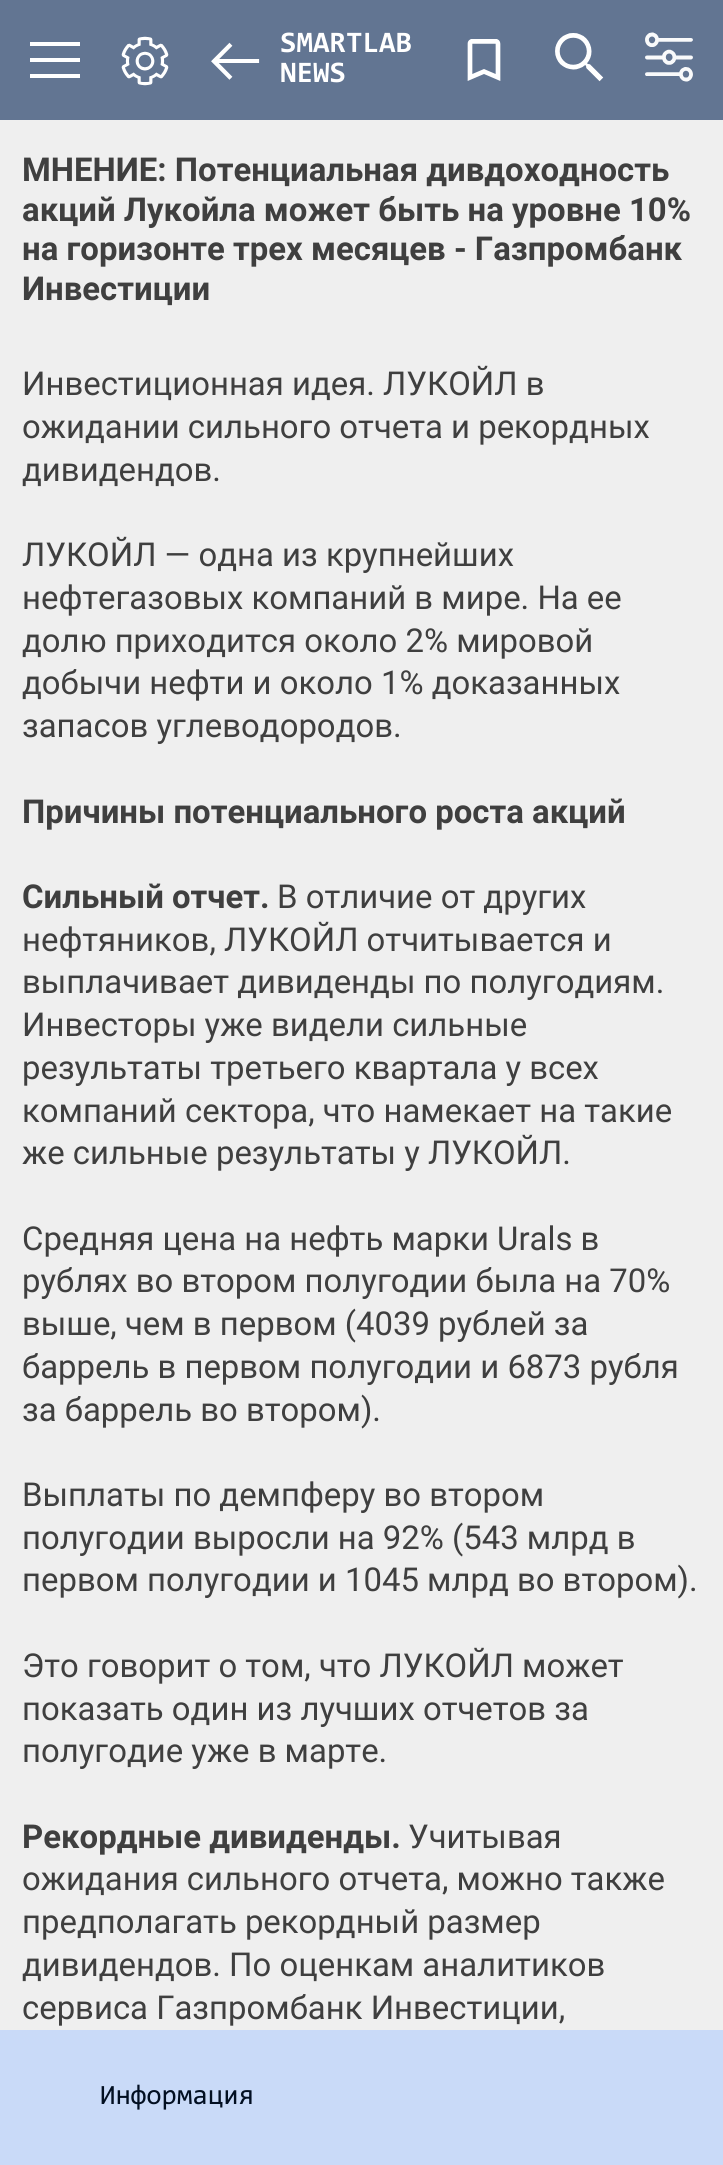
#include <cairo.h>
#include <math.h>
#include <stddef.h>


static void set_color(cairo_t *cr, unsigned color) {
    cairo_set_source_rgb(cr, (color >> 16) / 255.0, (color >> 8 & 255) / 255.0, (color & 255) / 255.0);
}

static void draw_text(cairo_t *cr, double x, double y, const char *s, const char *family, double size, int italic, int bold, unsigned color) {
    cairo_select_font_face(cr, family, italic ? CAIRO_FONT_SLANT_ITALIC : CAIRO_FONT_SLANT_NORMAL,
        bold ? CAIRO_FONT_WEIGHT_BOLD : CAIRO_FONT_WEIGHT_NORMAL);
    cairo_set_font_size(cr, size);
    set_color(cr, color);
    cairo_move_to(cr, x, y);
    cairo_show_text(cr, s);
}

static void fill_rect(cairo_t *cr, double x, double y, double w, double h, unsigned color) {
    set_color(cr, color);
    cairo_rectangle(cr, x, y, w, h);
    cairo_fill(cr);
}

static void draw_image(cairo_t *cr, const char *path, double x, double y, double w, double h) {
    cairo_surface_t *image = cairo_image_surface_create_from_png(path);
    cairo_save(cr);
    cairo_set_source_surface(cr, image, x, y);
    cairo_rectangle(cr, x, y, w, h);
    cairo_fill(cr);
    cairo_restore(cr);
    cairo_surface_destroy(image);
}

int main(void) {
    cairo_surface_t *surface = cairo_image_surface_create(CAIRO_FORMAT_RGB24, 723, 2165);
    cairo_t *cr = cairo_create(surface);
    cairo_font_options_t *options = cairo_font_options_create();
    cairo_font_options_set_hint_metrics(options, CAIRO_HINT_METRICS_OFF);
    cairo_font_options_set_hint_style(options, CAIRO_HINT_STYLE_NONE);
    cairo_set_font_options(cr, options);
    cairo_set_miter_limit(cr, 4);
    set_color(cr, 0xEFEFEF);
    cairo_paint(cr);
    fill_rect(cr, 0, 0, 723, 120, 0x627592);
    fill_rect(cr, 30, 42, 50, 4, 0xFFFFFF);
    fill_rect(cr, 30, 58, 50, 4, 0xFFFFFF);
    fill_rect(cr, 30, 74, 50, 4, 0xFFFFFF);
    draw_image(cr, "assets/img1.png", 121, 36, 48, 50);
    draw_image(cr, "assets/img2.png", 211, 42, 49, 38);
    draw_text(cr, 280, 52, "SMARTLAB", "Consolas", 30, 0, 1, 0xFFFFFF);
    draw_text(cr, 280, 82, "NEWS", "Consolas", 30, 0, 1, 0xFFFFFF);
    draw_image(cr, "assets/img3.png", 467, 39, 34, 42);
    draw_image(cr, "assets/img4.png", 555, 33, 49, 49);
    draw_image(cr, "assets/img5.png", 645, 32, 48, 50);
    draw_text(cr, 22, 181, "МНЕНИЕ: Потенциальная дивдоходность", "Roboto", 32.9, 0, 1, 0x3F3F3F);
    draw_text(cr, 22, 221, "акций Лукойла может быть на уровне 10%", "Roboto", 32.9, 0, 1, 0x3F3F3F);
    draw_text(cr, 22, 260, "на горизонте трех месяцев - Газпромбанк", "Roboto", 32.9, 0, 1, 0x3F3F3F);
    draw_text(cr, 22, 300, "Инвестиции", "Roboto", 32.9, 0, 1, 0x3F3F3F);
    draw_text(cr, 22, 395, "Инвестиционная идея. ЛУКОЙЛ в", "Roboto", 32.9, 0, 0, 0x3F3F3F);
    draw_text(cr, 22, 438, "ожидании сильного отчета и рекордных", "Roboto", 32.9, 0, 0, 0x3F3F3F);
    draw_text(cr, 22, 481, "дивидендов.", "Roboto", 32.9, 0, 0, 0x3F3F3F);
    draw_text(cr, 22, 566, "ЛУКОЙЛ — одна из крупнейших", "Roboto", 32.9, 0, 0, 0x3F3F3F);
    draw_text(cr, 22, 609, "нефтегазовых компаний в мире. На ее", "Roboto", 32.9, 0, 0, 0x3F3F3F);
    draw_text(cr, 22, 652, "долю приходится около 2% мировой", "Roboto", 32.9, 0, 0, 0x3F3F3F);
    draw_text(cr, 22, 694, "добычи нефти и около 1% доказанных", "Roboto", 32.9, 0, 0, 0x3F3F3F);
    draw_text(cr, 22, 737, "запасов углеводородов.", "Roboto", 32.9, 0, 0, 0x3F3F3F);
    draw_text(cr, 22, 823, "Причины потенциального роста акций", "Roboto", 32.9, 0, 1, 0x3F3F3F);
    draw_text(cr, 22, 908, "Сильный отчет.", "Roboto", 32.9, 0, 1, 0x3F3F3F);
    draw_text(cr, 277, 908, "В отличие от других", "Roboto", 32.9, 0, 0, 0x3F3F3F);
    draw_text(cr, 22, 951, "нефтяников, ЛУКОЙЛ отчитывается и", "Roboto", 32.9, 0, 0, 0x3F3F3F);
    draw_text(cr, 22, 993, "выплачивает дивиденды по полугодиям.", "Roboto", 32.9, 0, 0, 0x3F3F3F);
    draw_text(cr, 22, 1036, "Инвесторы уже видели сильные", "Roboto", 32.9, 0, 0, 0x3F3F3F);
    draw_text(cr, 22, 1079, "результаты третьего квартала у всех", "Roboto", 32.9, 0, 0, 0x3F3F3F);
    draw_text(cr, 22, 1122, "компаний сектора, что намекает на такие", "Roboto", 32.9, 0, 0, 0x3F3F3F);
    draw_text(cr, 22, 1164, "же сильные результаты у ЛУКОЙЛ.", "Roboto", 32.9, 0, 0, 0x3F3F3F);
    draw_text(cr, 22, 1250, "Средняя цена на нефть марки Urals в", "Roboto", 32.9, 0, 0, 0x3F3F3F);
    draw_text(cr, 22, 1292, "рублях во втором полугодии была на 70%", "Roboto", 32.9, 0, 0, 0x3F3F3F);
    draw_text(cr, 22, 1335, "выше, чем в первом (4039 рублей за", "Roboto", 32.9, 0, 0, 0x3F3F3F);
    draw_text(cr, 22, 1378, "баррель в первом полугодии и 6873 рубля", "Roboto", 32.9, 0, 0, 0x3F3F3F);
    draw_text(cr, 22, 1421, "за баррель во втором).", "Roboto", 32.9, 0, 0, 0x3F3F3F);
    draw_text(cr, 22, 1506, "Выплаты по демпферу во втором", "Roboto", 32.9, 0, 0, 0x3F3F3F);
    draw_text(cr, 22, 1549, "полугодии выросли на 92% (543 млрд в", "Roboto", 32.9, 0, 0, 0x3F3F3F);
    draw_text(cr, 22, 1591, "первом полугодии и 1045 млрд во втором).", "Roboto", 32.9, 0, 0, 0x3F3F3F);
    draw_text(cr, 22, 1677, "Это говорит о том, что ЛУКОЙЛ может", "Roboto", 32.9, 0, 0, 0x3F3F3F);
    draw_text(cr, 22, 1720, "показать один из лучших отчетов за", "Roboto", 32.9, 0, 0, 0x3F3F3F);
    draw_text(cr, 22, 1762, "полугодие уже в марте.", "Roboto", 32.9, 0, 0, 0x3F3F3F);
    draw_text(cr, 22, 1848, "Рекордные дивиденды.", "Roboto", 32.9, 0, 1, 0x3F3F3F);
    draw_text(cr, 408, 1848, "Учитывая", "Roboto", 32.9, 0, 0, 0x3F3F3F);
    draw_text(cr, 22, 1890, "ожидания сильного отчета, можно также", "Roboto", 32.9, 0, 0, 0x3F3F3F);
    draw_text(cr, 22, 1933, "предполагать рекордный размер", "Roboto", 32.9, 0, 0, 0x3F3F3F);
    draw_text(cr, 22, 1976, "дивидендов. По оценкам аналитиков", "Roboto", 32.9, 0, 0, 0x3F3F3F);
    draw_text(cr, 22, 2019, "сервиса Газпромбанк Инвестиции,", "Roboto", 32.9, 0, 0, 0x3F3F3F);
    fill_rect(cr, 0, 2030, 723, 135, 0xC9DAF8);
    draw_text(cr, 100, 2104, "Информация", "Consolas", 28, 0, 0, 0x020F22);
    cairo_surface_write_to_png(surface, "output.png");
    cairo_font_options_destroy(options);
    cairo_destroy(cr);
    cairo_surface_destroy(surface);
    return 0;
}
